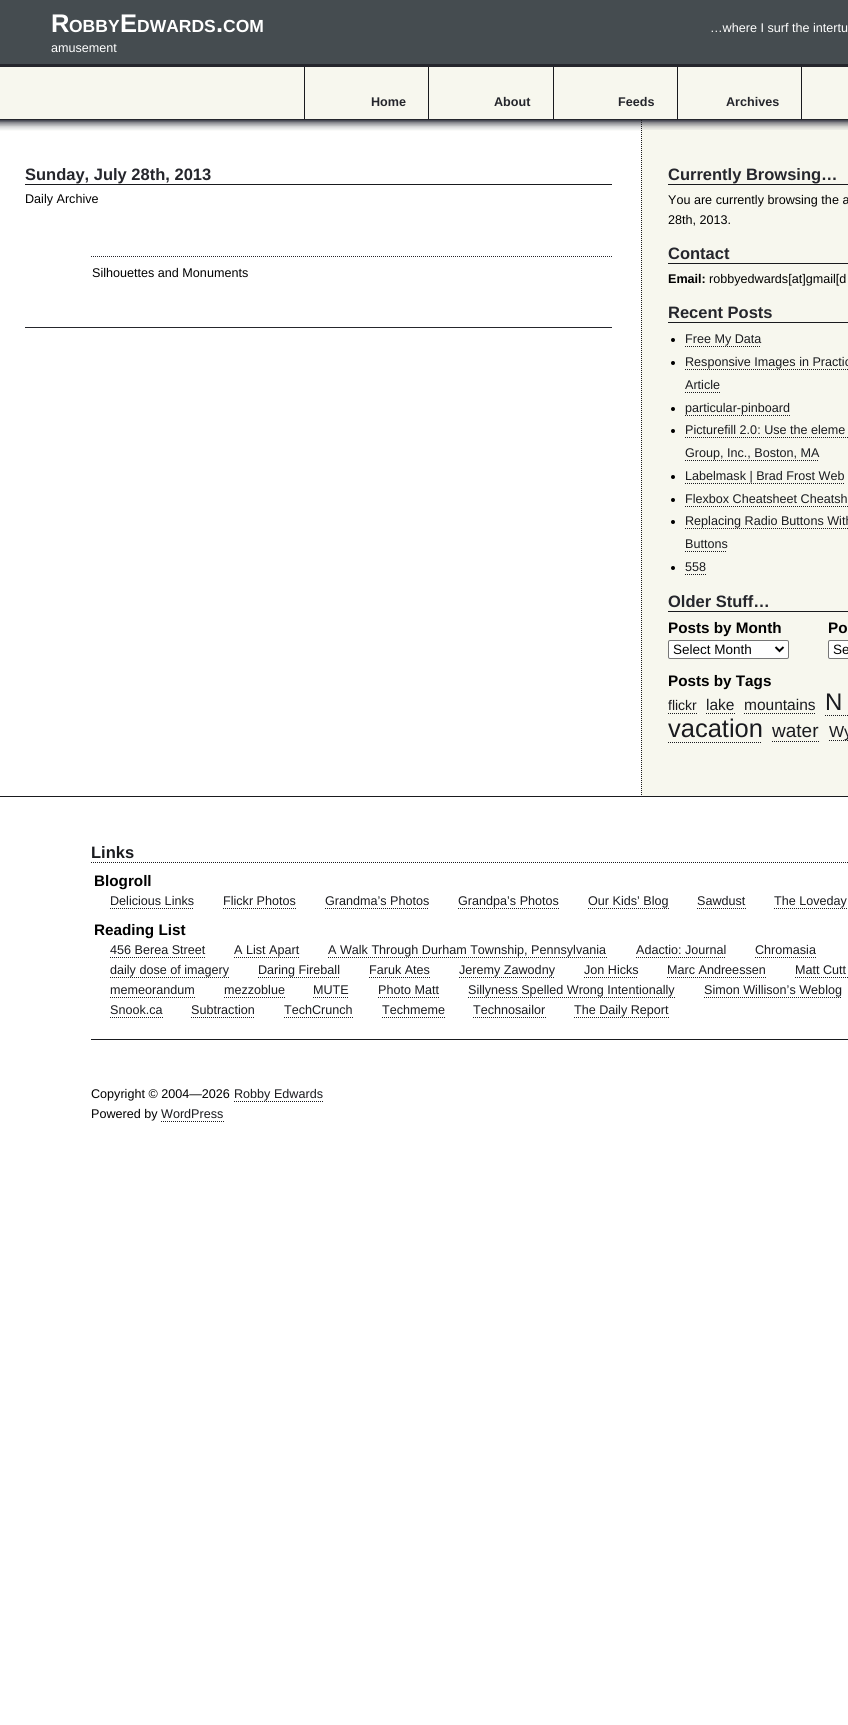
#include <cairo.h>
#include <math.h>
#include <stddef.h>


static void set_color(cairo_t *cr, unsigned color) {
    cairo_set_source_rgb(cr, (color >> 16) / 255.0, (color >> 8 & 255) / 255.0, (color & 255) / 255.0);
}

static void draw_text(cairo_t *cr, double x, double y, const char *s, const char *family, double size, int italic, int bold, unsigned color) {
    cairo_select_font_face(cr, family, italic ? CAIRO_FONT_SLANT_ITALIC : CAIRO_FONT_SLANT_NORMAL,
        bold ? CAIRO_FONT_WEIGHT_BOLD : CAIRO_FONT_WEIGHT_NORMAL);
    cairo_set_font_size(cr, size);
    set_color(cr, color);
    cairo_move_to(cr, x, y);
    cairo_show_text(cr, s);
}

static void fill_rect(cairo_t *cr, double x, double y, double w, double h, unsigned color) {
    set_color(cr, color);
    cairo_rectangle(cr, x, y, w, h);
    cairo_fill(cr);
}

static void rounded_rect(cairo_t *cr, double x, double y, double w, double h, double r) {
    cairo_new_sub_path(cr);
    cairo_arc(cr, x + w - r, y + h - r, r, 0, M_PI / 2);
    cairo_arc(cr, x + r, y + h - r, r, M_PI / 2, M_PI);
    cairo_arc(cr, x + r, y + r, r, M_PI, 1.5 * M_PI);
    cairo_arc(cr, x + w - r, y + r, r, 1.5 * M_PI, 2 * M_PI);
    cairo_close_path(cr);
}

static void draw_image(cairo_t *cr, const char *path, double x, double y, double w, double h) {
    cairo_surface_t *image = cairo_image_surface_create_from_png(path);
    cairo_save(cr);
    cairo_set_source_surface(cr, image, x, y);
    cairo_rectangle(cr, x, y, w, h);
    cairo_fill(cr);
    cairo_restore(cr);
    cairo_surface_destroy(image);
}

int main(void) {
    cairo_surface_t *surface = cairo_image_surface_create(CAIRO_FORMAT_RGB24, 848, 1725);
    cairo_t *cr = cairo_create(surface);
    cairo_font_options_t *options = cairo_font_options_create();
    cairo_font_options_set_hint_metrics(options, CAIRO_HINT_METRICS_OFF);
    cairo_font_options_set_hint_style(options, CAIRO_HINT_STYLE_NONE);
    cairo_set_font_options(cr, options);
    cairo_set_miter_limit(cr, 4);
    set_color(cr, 0xFFFFFF);
    cairo_paint(cr);
    fill_rect(cr, 0, 67, 848, 52, 0xF7F7EE);
    fill_rect(cr, 0, 119, 848, 1, 0x25262C);
    fill_rect(cr, 0, 64, 848, 3, 0x25262C);
    fill_rect(cr, 0, 0, 848, 64, 0x454C50);
    draw_text(cr, 51, 32, "R", "Liberation Sans", 25.5, 0, 1, 0xFFFFFF);
    draw_text(cr, 69, 32, "OBBY", "Liberation Sans", 17.5, 0, 1, 0xFFFFFF);
    draw_text(cr, 120, 32, "E", "Liberation Sans", 25.5, 0, 1, 0xFFFFFF);
    draw_text(cr, 137, 32, "DWARDS", "Liberation Sans", 17.5, 0, 1, 0xFFFFFF);
    draw_text(cr, 216, 32, ".", "Liberation Sans", 25.5, 0, 1, 0xFFFFFF);
    draw_text(cr, 223, 32, "COM", "Liberation Sans", 17.5, 0, 1, 0xFFFFFF);
    draw_text(cr, 710, 32, "…where I surf the intertu", "Liberation Sans", 12.6, 0, 0, 0xFFFFFF);
    draw_text(cr, 51, 52, "amusement", "Liberation Sans", 12.6, 0, 0, 0xFFFFFF);
    fill_rect(cr, 801, 67, 1, 52, 0x191A1E);
    fill_rect(cr, 304, 67, 1, 52, 0x191A1E);
    draw_text(cr, 371, 106, "Home", "Liberation Sans", 12.6, 0, 1, 0x25262C);
    fill_rect(cr, 428, 67, 1, 52, 0x191A1E);
    draw_text(cr, 494, 106, "About", "Liberation Sans", 12.6, 0, 1, 0x25262C);
    fill_rect(cr, 553, 67, 1, 52, 0x191A1E);
    draw_text(cr, 618, 106, "Feeds", "Liberation Sans", 12.6, 0, 1, 0x25262C);
    fill_rect(cr, 677, 67, 1, 52, 0x191A1E);
    draw_text(cr, 726, 106, "Archives", "Liberation Sans", 12.6, 0, 1, 0x25262C);
    draw_image(cr, "assets/img1.png", 0, 120, 641, 11);
    fill_rect(cr, 25, 184, 587, 1, 0x191A1E);
    draw_text(cr, 25, 180, "Sunday, July 28th, 2013", "Liberation Sans", 16.5, 0, 1, 0x25262C);
    draw_text(cr, 25, 203, "Daily Archive", "Liberation Sans", 12.6, 0, 0, 0x000000);
    cairo_new_path(cr);
    cairo_move_to(cr, 91, 256.5);
    cairo_line_to(cr, 612, 256.5);
    set_color(cr, 0x25262C);
    cairo_set_line_width(cr, 1);
    cairo_set_dash(cr, (double[]){1, 1}, 2, 0);
    cairo_stroke(cr);
    draw_text(cr, 92, 277, "Silhouettes and Monuments", "Liberation Sans", 12.6, 0, 0, 0x000000);
    fill_rect(cr, 25, 327, 587, 1, 0x25262C);
    fill_rect(cr, 641, 121, 207, 675, 0xF7F7EE);
    draw_image(cr, "assets/img2.png", 641, 120, 207, 10);
    cairo_new_path(cr);
    cairo_move_to(cr, 641.5, 120);
    cairo_line_to(cr, 641.5, 796);
    set_color(cr, 0x191A1E);
    cairo_stroke(cr);
    fill_rect(cr, 668, 184, 180, 1, 0x191A1E);
    draw_text(cr, 668, 180, "Currently Browsing…", "Liberation Sans", 16.5, 0, 1, 0x25262C);
    draw_text(cr, 668, 204, "You are currently browsing the a", "Liberation Sans", 12.6, 0, 0, 0x000000);
    draw_text(cr, 668, 224, "28th, 2013.", "Liberation Sans", 12.6, 0, 0, 0x000000);
    fill_rect(cr, 668, 263, 180, 1, 0x191A1E);
    draw_text(cr, 668, 259, "Contact", "Liberation Sans", 16.5, 0, 1, 0x25262C);
    draw_text(cr, 668, 283, "Email:", "Liberation Sans", 12.6, 0, 1, 0x000000);
    draw_text(cr, 709, 283, "robbyedwards[at]gmail[d", "Liberation Sans", 12.6, 0, 0, 0x000000);
    fill_rect(cr, 668, 322, 180, 1, 0x191A1E);
    draw_text(cr, 668, 318, "Recent Posts", "Liberation Sans", 16.5, 0, 1, 0x25262C);
    set_color(cr, 0x000000);
    cairo_new_path(cr);
    cairo_arc(cr, 673, 340, 2, 0, 2 * M_PI);
    cairo_fill(cr);
    draw_text(cr, 685, 343, "Free My Data", "Liberation Sans", 12.6, 0, 0, 0x191A1E);
    cairo_new_path(cr);
    cairo_move_to(cr, 685, 346.5);
    cairo_line_to(cr, 761, 346.5);
    cairo_stroke(cr);
    set_color(cr, 0x000000);
    cairo_arc(cr, 673, 363, 2, 0, 2 * M_PI);
    cairo_fill(cr);
    draw_text(cr, 685, 366, "Responsive Images in Practic", "Liberation Sans", 12.6, 0, 0, 0x191A1E);
    cairo_new_path(cr);
    cairo_move_to(cr, 685, 369.5);
    cairo_line_to(cr, 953, 369.5);
    cairo_stroke(cr);
    draw_text(cr, 685, 389, "Article", "Liberation Sans", 12.6, 0, 0, 0x191A1E);
    cairo_new_path(cr);
    cairo_move_to(cr, 685, 392.5);
    cairo_line_to(cr, 720, 392.5);
    cairo_stroke(cr);
    set_color(cr, 0x000000);
    cairo_arc(cr, 673, 409, 2, 0, 2 * M_PI);
    cairo_fill(cr);
    draw_text(cr, 685, 412, "particular-pinboard", "Liberation Sans", 12.6, 0, 0, 0x191A1E);
    cairo_new_path(cr);
    cairo_move_to(cr, 685, 415.5);
    cairo_line_to(cr, 790, 415.5);
    cairo_stroke(cr);
    set_color(cr, 0x000000);
    cairo_arc(cr, 673, 431, 2, 0, 2 * M_PI);
    cairo_fill(cr);
    draw_text(cr, 685, 434, "Picturefill 2.0: Use the eleme", "Liberation Sans", 12.6, 0, 0, 0x191A1E);
    cairo_new_path(cr);
    cairo_move_to(cr, 685, 437.5);
    cairo_line_to(cr, 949, 437.5);
    cairo_stroke(cr);
    draw_text(cr, 685, 457, "Group, Inc., Boston, MA", "Liberation Sans", 12.6, 0, 0, 0x191A1E);
    cairo_new_path(cr);
    cairo_move_to(cr, 685, 460.5);
    cairo_line_to(cr, 819, 460.5);
    cairo_stroke(cr);
    set_color(cr, 0x000000);
    cairo_arc(cr, 673, 477, 2, 0, 2 * M_PI);
    cairo_fill(cr);
    draw_text(cr, 685, 480, "Labelmask | Brad Frost Web", "Liberation Sans", 12.6, 0, 0, 0x191A1E);
    cairo_new_path(cr);
    cairo_move_to(cr, 685, 483.5);
    cairo_line_to(cr, 844, 483.5);
    cairo_stroke(cr);
    set_color(cr, 0x000000);
    cairo_arc(cr, 673, 500, 2, 0, 2 * M_PI);
    cairo_fill(cr);
    draw_text(cr, 685, 503, "Flexbox Cheatsheet Cheatsh", "Liberation Sans", 12.6, 0, 0, 0x191A1E);
    cairo_new_path(cr);
    cairo_move_to(cr, 685, 506.5);
    cairo_line_to(cr, 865, 506.5);
    cairo_stroke(cr);
    set_color(cr, 0x000000);
    cairo_arc(cr, 673, 522, 2, 0, 2 * M_PI);
    cairo_fill(cr);
    draw_text(cr, 685, 525, "Replacing Radio Buttons With", "Liberation Sans", 12.6, 0, 0, 0x191A1E);
    cairo_new_path(cr);
    cairo_move_to(cr, 685, 528.5);
    cairo_line_to(cr, 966, 528.5);
    cairo_stroke(cr);
    draw_text(cr, 685, 548, "Buttons", "Liberation Sans", 12.6, 0, 0, 0x191A1E);
    cairo_new_path(cr);
    cairo_move_to(cr, 685, 551.5);
    cairo_line_to(cr, 727, 551.5);
    cairo_stroke(cr);
    set_color(cr, 0x000000);
    cairo_arc(cr, 673, 568, 2, 0, 2 * M_PI);
    cairo_fill(cr);
    draw_text(cr, 685, 571, "558", "Liberation Sans", 12.6, 0, 0, 0x191A1E);
    cairo_new_path(cr);
    cairo_move_to(cr, 685, 574.5);
    cairo_line_to(cr, 706, 574.5);
    cairo_stroke(cr);
    fill_rect(cr, 668, 611, 180, 1, 0x191A1E);
    draw_text(cr, 668, 607, "Older Stuff…", "Liberation Sans", 16.5, 0, 1, 0x25262C);
    draw_text(cr, 668, 633, "Posts by Month", "Liberation Sans", 15.25, 0, 1, 0x000000);
    set_color(cr, 0xFFFFFF);
    rounded_rect(cr, 668.5, 640.5, 120, 18, 1.5);
    cairo_fill_preserve(cr);
    set_color(cr, 0x767676);
    cairo_set_dash(cr, NULL, 0, 0);
    cairo_stroke(cr);
    cairo_new_path(cr);
    cairo_move_to(cr, 775.5, 647);
    cairo_line_to(cr, 779.5, 651);
    cairo_line_to(cr, 783.5, 647);
    set_color(cr, 0x000000);
    cairo_set_line_width(cr, 2);
    cairo_stroke(cr);
    draw_text(cr, 673, 654, "Select Month", "Liberation Sans", 13.5, 0, 0, 0x000000);
    draw_text(cr, 828, 633, "Po", "Liberation Sans", 15.25, 0, 1, 0x000000);
    set_color(cr, 0xFFFFFF);
    rounded_rect(cr, 828.5, 640.5, 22, 18, 1.5);
    cairo_fill_preserve(cr);
    set_color(cr, 0x767676);
    cairo_set_line_width(cr, 1);
    cairo_stroke(cr);
    draw_text(cr, 833, 654, "Se", "Liberation Sans", 13.5, 0, 0, 0x000000);
    draw_text(cr, 668, 686, "Posts by Tags", "Liberation Sans", 15.25, 0, 1, 0x000000);
    draw_text(cr, 668, 710, "flickr", "Liberation Sans", 14, 0, 0, 0x191A1E);
    cairo_new_path(cr);
    cairo_move_to(cr, 668, 713.5);
    cairo_line_to(cr, 697, 713.5);
    cairo_set_dash(cr, (double[]){1, 1}, 2, 0);
    cairo_stroke(cr);
    draw_text(cr, 706, 710, "lake", "Liberation Sans", 15.5, 0, 0, 0x191A1E);
    cairo_new_path(cr);
    cairo_move_to(cr, 706, 713.5);
    cairo_line_to(cr, 735, 713.5);
    cairo_stroke(cr);
    draw_text(cr, 744, 710, "mountains", "Liberation Sans", 15.5, 0, 0, 0x191A1E);
    cairo_new_path(cr);
    cairo_move_to(cr, 744, 713.5);
    cairo_line_to(cr, 816, 713.5);
    cairo_stroke(cr);
    draw_text(cr, 825, 710, "N", "Liberation Sans", 24, 0, 0, 0x191A1E);
    cairo_new_path(cr);
    cairo_move_to(cr, 825, 715.5);
    cairo_line_to(cr, 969, 715.5);
    cairo_stroke(cr);
    draw_text(cr, 668, 737, "vacation", "Liberation Sans", 25.5, 0, 0, 0x191A1E);
    cairo_new_path(cr);
    cairo_move_to(cr, 668, 742.5);
    cairo_line_to(cr, 762, 742.5);
    cairo_stroke(cr);
    draw_text(cr, 772, 737, "water", "Liberation Sans", 19, 0, 0, 0x191A1E);
    cairo_new_path(cr);
    cairo_move_to(cr, 772, 741.5);
    cairo_line_to(cr, 819, 741.5);
    cairo_stroke(cr);
    cairo_new_path(cr);
    cairo_move_to(cr, 829, 740.5);
    cairo_line_to(cr, 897, 740.5);
    cairo_stroke(cr);
    draw_text(cr, 829, 737, "Wy", "Liberation Sans", 16, 0, 0, 0x191A1E);
    fill_rect(cr, 0, 796, 848, 1, 0x191A1E);
    cairo_new_path(cr);
    cairo_move_to(cr, 91, 862.5);
    cairo_line_to(cr, 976, 862.5);
    cairo_stroke(cr);
    draw_text(cr, 91, 858, "Links", "Liberation Sans", 16.5, 0, 1, 0x191A1E);
    fill_rect(cr, 91, 1039, 757, 1, 0x191A1E);
    draw_text(cr, 94, 886, "Blogroll", "Liberation Sans", 15.25, 0, 1, 0x000000);
    draw_text(cr, 110, 905, "Delicious Links", "Liberation Sans", 12.6, 0, 0, 0x191A1E);
    cairo_new_path(cr);
    cairo_move_to(cr, 110, 908.5);
    cairo_line_to(cr, 194, 908.5);
    cairo_stroke(cr);
    draw_text(cr, 223, 905, "Flickr Photos", "Liberation Sans", 12.6, 0, 0, 0x191A1E);
    cairo_new_path(cr);
    cairo_move_to(cr, 223, 908.5);
    cairo_line_to(cr, 296, 908.5);
    cairo_stroke(cr);
    draw_text(cr, 325, 905, "Grandma’s Photos", "Liberation Sans", 12.6, 0, 0, 0x191A1E);
    cairo_new_path(cr);
    cairo_move_to(cr, 325, 908.5);
    cairo_line_to(cr, 429, 908.5);
    cairo_stroke(cr);
    draw_text(cr, 458, 905, "Grandpa’s Photos", "Liberation Sans", 12.6, 0, 0, 0x191A1E);
    cairo_new_path(cr);
    cairo_move_to(cr, 458, 908.5);
    cairo_line_to(cr, 559, 908.5);
    cairo_stroke(cr);
    draw_text(cr, 588, 905, "Our Kids’ Blog", "Liberation Sans", 12.6, 0, 0, 0x191A1E);
    cairo_new_path(cr);
    cairo_move_to(cr, 588, 908.5);
    cairo_line_to(cr, 669, 908.5);
    cairo_stroke(cr);
    draw_text(cr, 697, 905, "Sawdust", "Liberation Sans", 12.6, 0, 0, 0x191A1E);
    cairo_new_path(cr);
    cairo_move_to(cr, 697, 908.5);
    cairo_line_to(cr, 746, 908.5);
    cairo_stroke(cr);
    draw_text(cr, 774, 905, "The Loveday", "Liberation Sans", 12.6, 0, 0, 0x191A1E);
    cairo_new_path(cr);
    cairo_move_to(cr, 774, 908.5);
    cairo_line_to(cr, 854, 908.5);
    cairo_stroke(cr);
    draw_text(cr, 94, 935, "Reading List", "Liberation Sans", 15.25, 0, 1, 0x000000);
    draw_text(cr, 110, 954, "456 Berea Street", "Liberation Sans", 12.6, 0, 0, 0x191A1E);
    cairo_new_path(cr);
    cairo_move_to(cr, 110, 957.5);
    cairo_line_to(cr, 205, 957.5);
    cairo_stroke(cr);
    draw_text(cr, 234, 954, "A List Apart", "Liberation Sans", 12.6, 0, 0, 0x191A1E);
    cairo_new_path(cr);
    cairo_move_to(cr, 234, 957.5);
    cairo_line_to(cr, 299, 957.5);
    cairo_stroke(cr);
    draw_text(cr, 328, 954, "A Walk Through Durham Township, Pennsylvania", "Liberation Sans", 12.6, 0, 0, 0x191A1E);
    cairo_new_path(cr);
    cairo_move_to(cr, 328, 957.5);
    cairo_line_to(cr, 607, 957.5);
    cairo_stroke(cr);
    draw_text(cr, 636, 954, "Adactio: Journal", "Liberation Sans", 12.6, 0, 0, 0x191A1E);
    cairo_new_path(cr);
    cairo_move_to(cr, 636, 957.5);
    cairo_line_to(cr, 726, 957.5);
    cairo_stroke(cr);
    draw_text(cr, 755, 954, "Chromasia", "Liberation Sans", 12.6, 0, 0, 0x191A1E);
    cairo_new_path(cr);
    cairo_move_to(cr, 755, 957.5);
    cairo_line_to(cr, 816, 957.5);
    cairo_stroke(cr);
    draw_text(cr, 110, 974, "daily dose of imagery", "Liberation Sans", 12.6, 0, 0, 0x191A1E);
    cairo_new_path(cr);
    cairo_move_to(cr, 110, 977.5);
    cairo_line_to(cr, 229, 977.5);
    cairo_stroke(cr);
    draw_text(cr, 258, 974, "Daring Fireball", "Liberation Sans", 12.6, 0, 0, 0x191A1E);
    cairo_new_path(cr);
    cairo_move_to(cr, 258, 977.5);
    cairo_line_to(cr, 340, 977.5);
    cairo_stroke(cr);
    draw_text(cr, 369, 974, "Faruk Ates", "Liberation Sans", 12.6, 0, 0, 0x191A1E);
    cairo_new_path(cr);
    cairo_move_to(cr, 369, 977.5);
    cairo_line_to(cr, 430, 977.5);
    cairo_stroke(cr);
    draw_text(cr, 459, 974, "Jeremy Zawodny", "Liberation Sans", 12.6, 0, 0, 0x191A1E);
    cairo_new_path(cr);
    cairo_move_to(cr, 459, 977.5);
    cairo_line_to(cr, 555, 977.5);
    cairo_stroke(cr);
    draw_text(cr, 584, 974, "Jon Hicks", "Liberation Sans", 12.6, 0, 0, 0x191A1E);
    cairo_new_path(cr);
    cairo_move_to(cr, 584, 977.5);
    cairo_line_to(cr, 638, 977.5);
    cairo_stroke(cr);
    draw_text(cr, 667, 974, "Marc Andreessen", "Liberation Sans", 12.6, 0, 0, 0x191A1E);
    cairo_new_path(cr);
    cairo_move_to(cr, 667, 977.5);
    cairo_line_to(cr, 766, 977.5);
    cairo_stroke(cr);
    draw_text(cr, 795, 974, "Matt Cutt", "Liberation Sans", 12.6, 0, 0, 0x191A1E);
    cairo_new_path(cr);
    cairo_move_to(cr, 795, 977.5);
    cairo_line_to(cr, 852, 977.5);
    cairo_stroke(cr);
    draw_text(cr, 110, 994, "memeorandum", "Liberation Sans", 12.6, 0, 0, 0x191A1E);
    cairo_new_path(cr);
    cairo_move_to(cr, 110, 997.5);
    cairo_line_to(cr, 195, 997.5);
    cairo_stroke(cr);
    draw_text(cr, 224, 994, "mezzoblue", "Liberation Sans", 12.6, 0, 0, 0x191A1E);
    cairo_new_path(cr);
    cairo_move_to(cr, 224, 997.5);
    cairo_line_to(cr, 285, 997.5);
    cairo_stroke(cr);
    draw_text(cr, 313, 994, "MUTE", "Liberation Sans", 12.6, 0, 0, 0x191A1E);
    cairo_new_path(cr);
    cairo_move_to(cr, 313, 997.5);
    cairo_line_to(cr, 349, 997.5);
    cairo_stroke(cr);
    draw_text(cr, 378, 994, "Photo Matt", "Liberation Sans", 12.6, 0, 0, 0x191A1E);
    cairo_new_path(cr);
    cairo_move_to(cr, 378, 997.5);
    cairo_line_to(cr, 439, 997.5);
    cairo_stroke(cr);
    draw_text(cr, 468, 994, "Sillyness Spelled Wrong Intentionally", "Liberation Sans", 12.6, 0, 0, 0x191A1E);
    cairo_new_path(cr);
    cairo_move_to(cr, 468, 997.5);
    cairo_line_to(cr, 675, 997.5);
    cairo_stroke(cr);
    draw_text(cr, 704, 994, "Simon Willison’s Weblog", "Liberation Sans", 12.6, 0, 0, 0x191A1E);
    cairo_new_path(cr);
    cairo_move_to(cr, 704, 997.5);
    cairo_line_to(cr, 842, 997.5);
    cairo_stroke(cr);
    draw_text(cr, 110, 1014, "Snook.ca", "Liberation Sans", 12.6, 0, 0, 0x191A1E);
    cairo_new_path(cr);
    cairo_move_to(cr, 110, 1017.5);
    cairo_line_to(cr, 163, 1017.5);
    cairo_stroke(cr);
    draw_text(cr, 191, 1014, "Subtraction", "Liberation Sans", 12.6, 0, 0, 0x191A1E);
    cairo_new_path(cr);
    cairo_move_to(cr, 191, 1017.5);
    cairo_line_to(cr, 255, 1017.5);
    cairo_stroke(cr);
    draw_text(cr, 284, 1014, "TechCrunch", "Liberation Sans", 12.6, 0, 0, 0x191A1E);
    cairo_new_path(cr);
    cairo_move_to(cr, 284, 1017.5);
    cairo_line_to(cr, 353, 1017.5);
    cairo_stroke(cr);
    draw_text(cr, 382, 1014, "Techmeme", "Liberation Sans", 12.6, 0, 0, 0x191A1E);
    cairo_new_path(cr);
    cairo_move_to(cr, 382, 1017.5);
    cairo_line_to(cr, 445, 1017.5);
    cairo_stroke(cr);
    draw_text(cr, 473, 1014, "Technosailor", "Liberation Sans", 12.6, 0, 0, 0x191A1E);
    cairo_new_path(cr);
    cairo_move_to(cr, 473, 1017.5);
    cairo_line_to(cr, 546, 1017.5);
    cairo_stroke(cr);
    draw_text(cr, 574, 1014, "The Daily Report", "Liberation Sans", 12.6, 0, 0, 0x191A1E);
    cairo_new_path(cr);
    cairo_move_to(cr, 574, 1017.5);
    cairo_line_to(cr, 669, 1017.5);
    cairo_stroke(cr);
    draw_text(cr, 91, 1098, "Copyright © 2004—2026", "Liberation Sans", 12.6, 0, 0, 0x000000);
    draw_text(cr, 234, 1098, "Robby Edwards", "Liberation Sans", 12.6, 0, 0, 0x191A1E);
    cairo_new_path(cr);
    cairo_move_to(cr, 234, 1101.5);
    cairo_line_to(cr, 323, 1101.5);
    cairo_stroke(cr);
    draw_text(cr, 91, 1118, "Powered by", "Liberation Sans", 12.6, 0, 0, 0x000000);
    draw_text(cr, 161, 1118, "WordPress", "Liberation Sans", 12.6, 0, 0, 0x191A1E);
    cairo_new_path(cr);
    cairo_move_to(cr, 161, 1121.5);
    cairo_line_to(cr, 224, 1121.5);
    cairo_stroke(cr);
    cairo_surface_write_to_png(surface, "output.png");
    cairo_font_options_destroy(options);
    cairo_destroy(cr);
    cairo_surface_destroy(surface);
    return 0;
}
